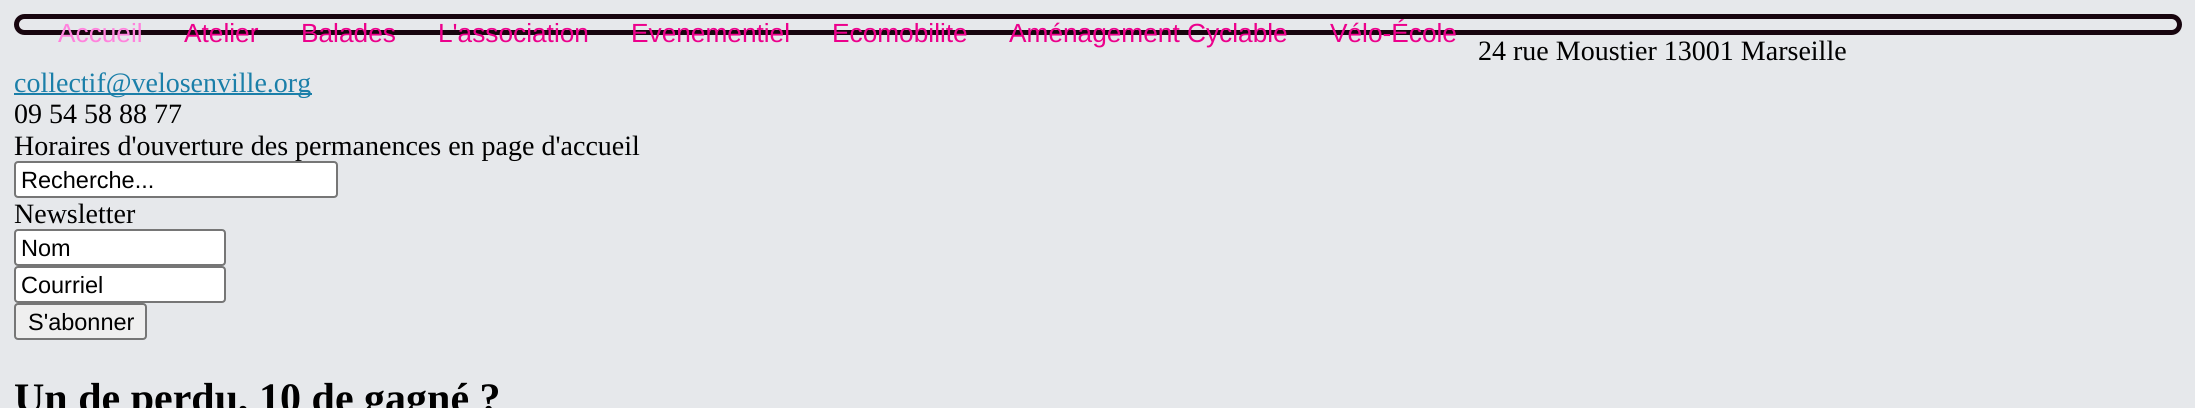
#include <cairo.h>
#include <math.h>
#include <stddef.h>


static void set_color(cairo_t *cr, unsigned color) {
    cairo_set_source_rgb(cr, (color >> 16) / 255.0, (color >> 8 & 255) / 255.0, (color & 255) / 255.0);
}

static void draw_text(cairo_t *cr, double x, double y, const char *s, const char *family, double size, int italic, int bold, unsigned color) {
    cairo_select_font_face(cr, family, italic ? CAIRO_FONT_SLANT_ITALIC : CAIRO_FONT_SLANT_NORMAL,
        bold ? CAIRO_FONT_WEIGHT_BOLD : CAIRO_FONT_WEIGHT_NORMAL);
    cairo_set_font_size(cr, size);
    set_color(cr, color);
    cairo_move_to(cr, x, y);
    cairo_show_text(cr, s);
}

static void fill_rect(cairo_t *cr, double x, double y, double w, double h, unsigned color) {
    set_color(cr, color);
    cairo_rectangle(cr, x, y, w, h);
    cairo_fill(cr);
}

static void rounded_rect(cairo_t *cr, double x, double y, double w, double h, double r) {
    cairo_new_sub_path(cr);
    cairo_arc(cr, x + w - r, y + h - r, r, 0, M_PI / 2);
    cairo_arc(cr, x + r, y + h - r, r, M_PI / 2, M_PI);
    cairo_arc(cr, x + r, y + r, r, M_PI, 1.5 * M_PI);
    cairo_arc(cr, x + w - r, y + r, r, 1.5 * M_PI, 2 * M_PI);
    cairo_close_path(cr);
}

int main(void) {
    cairo_surface_t *surface = cairo_image_surface_create(CAIRO_FORMAT_RGB24, 2195, 408);
    cairo_t *cr = cairo_create(surface);
    cairo_font_options_t *options = cairo_font_options_create();
    cairo_font_options_set_hint_metrics(options, CAIRO_HINT_METRICS_OFF);
    cairo_font_options_set_hint_style(options, CAIRO_HINT_STYLE_NONE);
    cairo_set_font_options(cr, options);
    cairo_set_miter_limit(cr, 4);
    set_color(cr, 0xE6E8EB);
    cairo_paint(cr);
    rounded_rect(cr, 16.5, 16.5, 2163, 16, 8);
    set_color(cr, 0x17050E);
    cairo_set_line_width(cr, 5);
    cairo_stroke(cr);
    draw_text(cr, 58, 42, "Accueil", "Liberation Sans", 26.25, 0, 0, 0xFF82DD);
    draw_text(cr, 184, 42, "Atelier", "Liberation Sans", 26.25, 0, 0, 0xEC008C);
    draw_text(cr, 301, 42, "Balades", "Liberation Sans", 26.25, 0, 0, 0xEC008C);
    draw_text(cr, 438, 42, "L'association", "Liberation Sans", 26.25, 0, 0, 0xEC008C);
    draw_text(cr, 631, 42, "Evenementiel", "Liberation Sans", 26.25, 0, 0, 0xEC008C);
    draw_text(cr, 832, 42, "Ecomobilite", "Liberation Sans", 26.25, 0, 0, 0xEC008C);
    draw_text(cr, 1009, 42, "Aménagement Cyclable", "Liberation Sans", 26.25, 0, 0, 0xEC008C);
    draw_text(cr, 1330, 42, "Vélo-École", "Liberation Sans", 26.25, 0, 0, 0xEC008C);
    draw_text(cr, 1478, 60, "24 rue Moustier 13001 Marseille", "Liberation Serif", 28, 0, 0, 0x000000);
    fill_rect(cr, 14, 93, 298, 2, 0x1B7FA9);
    draw_text(cr, 14, 92, "collectif@velosenville.org", "Liberation Serif", 28, 0, 0, 0x1B7FA9);
    draw_text(cr, 14, 123, "09 54 58 88 77", "Liberation Serif", 28, 0, 0, 0x000000);
    draw_text(cr, 14, 155, "Horaires d'ouverture des permanences en page d'accueil", "Liberation Serif", 28, 0, 0, 0x000000);
    set_color(cr, 0xFFFFFF);
    rounded_rect(cr, 15, 162, 322, 35, 3);
    cairo_fill_preserve(cr);
    set_color(cr, 0x767676);
    cairo_set_line_width(cr, 2);
    cairo_stroke(cr);
    draw_text(cr, 21, 188, "Recherche...", "Liberation Sans", 23.5, 0, 0, 0x000000);
    draw_text(cr, 14, 223, "Newsletter", "Liberation Serif", 28, 0, 0, 0x000000);
    set_color(cr, 0xFFFFFF);
    rounded_rect(cr, 15, 230, 210, 35, 3);
    cairo_fill_preserve(cr);
    set_color(cr, 0x767676);
    cairo_stroke(cr);
    draw_text(cr, 21, 256, "Nom", "Liberation Sans", 23.5, 0, 0, 0x000000);
    set_color(cr, 0xFFFFFF);
    rounded_rect(cr, 15, 267, 210, 35, 3);
    cairo_fill_preserve(cr);
    set_color(cr, 0x767676);
    cairo_stroke(cr);
    draw_text(cr, 21, 293, "Courriel", "Liberation Sans", 23.5, 0, 0, 0x000000);
    set_color(cr, 0xEFEFEF);
    rounded_rect(cr, 15, 304, 131, 35, 3);
    cairo_fill_preserve(cr);
    set_color(cr, 0x767676);
    cairo_stroke(cr);
    draw_text(cr, 28, 330, "S'abonner", "Liberation Sans", 23.5, 0, 0, 0x000000);
    draw_text(cr, 14, 412, "Un de perdu, 10 de gagné ?", "Liberation Serif", 42, 0, 1, 0x000000);
    cairo_surface_write_to_png(surface, "output.png");
    cairo_font_options_destroy(options);
    cairo_destroy(cr);
    cairo_surface_destroy(surface);
    return 0;
}
